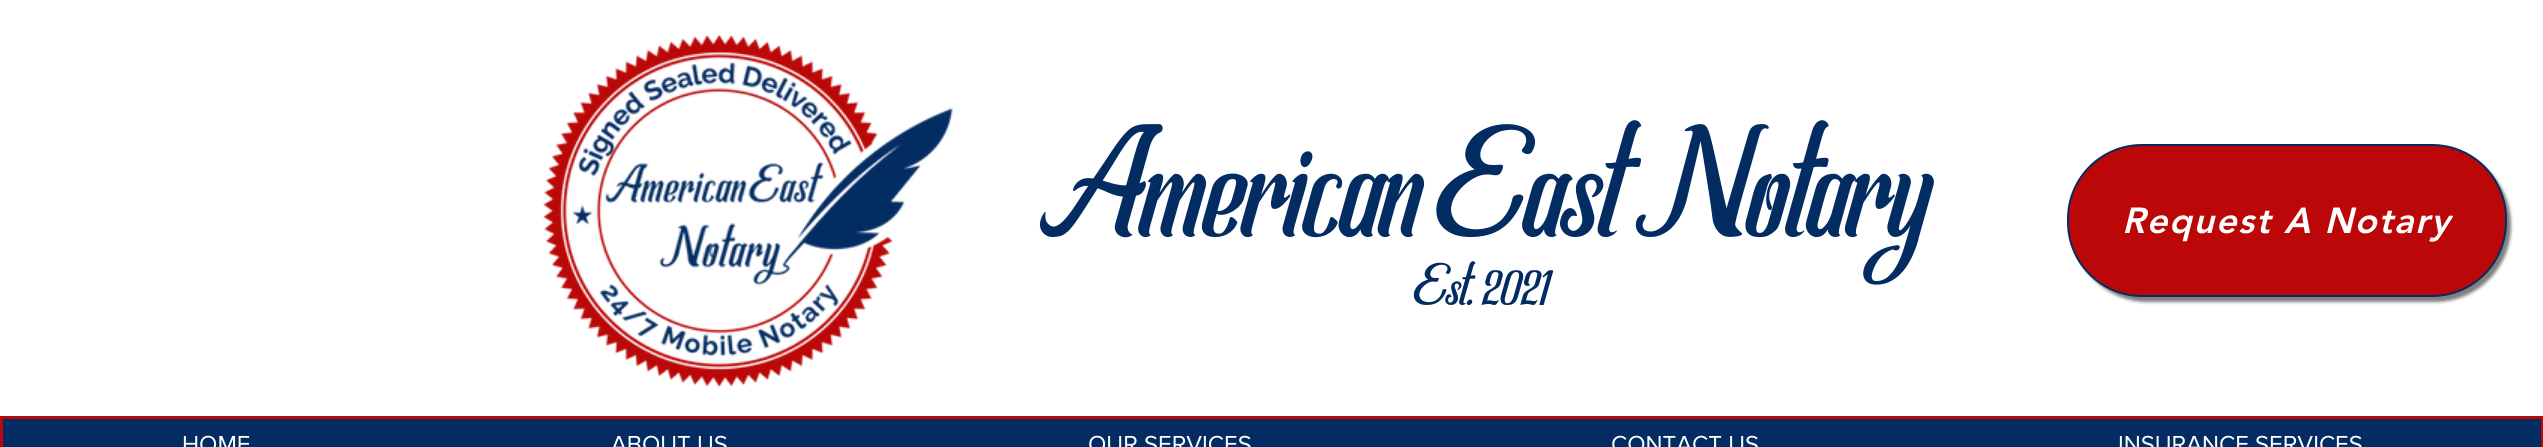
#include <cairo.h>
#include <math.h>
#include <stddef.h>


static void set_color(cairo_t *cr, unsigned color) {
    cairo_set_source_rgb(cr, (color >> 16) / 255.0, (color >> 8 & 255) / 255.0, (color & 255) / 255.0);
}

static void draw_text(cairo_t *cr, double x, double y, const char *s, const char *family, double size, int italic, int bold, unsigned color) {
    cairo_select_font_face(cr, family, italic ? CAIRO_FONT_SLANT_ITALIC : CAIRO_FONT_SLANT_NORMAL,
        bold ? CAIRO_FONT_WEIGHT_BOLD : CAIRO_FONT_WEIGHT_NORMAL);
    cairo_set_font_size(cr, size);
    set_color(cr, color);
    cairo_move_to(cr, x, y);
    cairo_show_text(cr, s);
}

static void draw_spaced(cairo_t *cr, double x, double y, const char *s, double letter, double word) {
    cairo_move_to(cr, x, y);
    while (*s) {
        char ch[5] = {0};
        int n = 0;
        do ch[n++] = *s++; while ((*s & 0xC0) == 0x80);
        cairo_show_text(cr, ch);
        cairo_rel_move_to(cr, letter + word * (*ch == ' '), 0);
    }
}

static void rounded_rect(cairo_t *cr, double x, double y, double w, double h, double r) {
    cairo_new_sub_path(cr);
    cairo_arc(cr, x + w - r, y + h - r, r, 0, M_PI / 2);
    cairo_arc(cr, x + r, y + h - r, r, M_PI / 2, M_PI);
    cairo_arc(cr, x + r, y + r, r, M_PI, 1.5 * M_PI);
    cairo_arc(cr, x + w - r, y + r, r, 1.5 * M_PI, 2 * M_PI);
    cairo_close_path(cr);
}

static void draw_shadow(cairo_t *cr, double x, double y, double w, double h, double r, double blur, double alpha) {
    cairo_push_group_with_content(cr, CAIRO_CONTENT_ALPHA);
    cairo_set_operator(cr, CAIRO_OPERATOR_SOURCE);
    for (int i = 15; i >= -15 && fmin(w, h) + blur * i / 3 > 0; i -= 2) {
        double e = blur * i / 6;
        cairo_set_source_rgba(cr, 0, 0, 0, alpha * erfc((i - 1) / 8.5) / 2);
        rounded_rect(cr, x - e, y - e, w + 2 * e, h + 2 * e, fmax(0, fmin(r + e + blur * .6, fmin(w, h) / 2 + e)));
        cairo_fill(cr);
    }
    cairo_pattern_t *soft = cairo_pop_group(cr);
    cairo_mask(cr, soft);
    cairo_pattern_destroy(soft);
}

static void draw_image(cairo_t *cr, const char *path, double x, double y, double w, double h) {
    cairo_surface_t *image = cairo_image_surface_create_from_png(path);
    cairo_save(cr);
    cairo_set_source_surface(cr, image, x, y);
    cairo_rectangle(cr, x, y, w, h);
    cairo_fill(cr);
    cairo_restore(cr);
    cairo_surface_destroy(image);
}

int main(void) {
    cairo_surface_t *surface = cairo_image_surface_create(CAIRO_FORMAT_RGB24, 2543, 447);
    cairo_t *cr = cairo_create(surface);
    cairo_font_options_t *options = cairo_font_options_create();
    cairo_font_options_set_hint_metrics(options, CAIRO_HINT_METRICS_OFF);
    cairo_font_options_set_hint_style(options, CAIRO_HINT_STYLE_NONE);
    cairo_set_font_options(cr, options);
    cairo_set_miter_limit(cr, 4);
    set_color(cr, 0xFFFFFF);
    cairo_paint(cr);
    draw_image(cr, "assets/img1.png", 543, 34, 410, 354);
    cairo_select_font_face(cr, "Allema", CAIRO_FONT_SLANT_NORMAL, CAIRO_FONT_WEIGHT_NORMAL);
    cairo_set_font_size(cr, 120);
    set_color(cr, 0x032C62);
    draw_spaced(cr, 1035, 237, "American East Notary", -6, 0);
    cairo_set_font_size(cr, 45);
    draw_spaced(cr, 1412, 305, "Est. 2021", -2.25, 0);
    cairo_rectangle(cr, 1.5, 417.5, 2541, 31);
    cairo_fill_preserve(cr);
    set_color(cr, 0xBB0708);
    cairo_set_line_width(cr, 3);
    cairo_stroke(cr);
    draw_text(cr, 182, 452, "HOME", "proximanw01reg", 24, 0, 0, 0xFFFFFF);
    draw_text(cr, 611, 452, "ABOUT US", "proximanw01reg", 24, 0, 0, 0xFFFFFF);
    draw_text(cr, 1088, 452, "OUR SERVICES", "proximanw01reg", 24, 0, 0, 0xFFFFFF);
    draw_text(cr, 1611, 452, "CONTACT US", "proximanw01reg", 24, 0, 0, 0xFFFFFF);
    draw_text(cr, 2118, 452, "INSURANCE SERVICES", "proximanw01reg", 24, 0, 0, 0xFFFFFF);
    set_color(cr, 0x000000);
    draw_shadow(cr, 2072, 149, 439, 153, 75, 1.5, 0.5);
    set_color(cr, 0xBB0708);
    rounded_rect(cr, 2068, 145, 438, 151, 74);
    cairo_fill_preserve(cr);
    set_color(cr, 0x032C62);
    cairo_set_line_width(cr, 2);
    cairo_stroke(cr);
    cairo_save(cr);
    cairo_rectangle(cr, 2121, 200, 332, 43);
    cairo_clip(cr);
    cairo_select_font_face(cr, "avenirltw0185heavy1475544 Black", CAIRO_FONT_SLANT_ITALIC, CAIRO_FONT_WEIGHT_NORMAL);
    cairo_set_font_size(cr, 36);
    set_color(cr, 0xFFFFFF);
    draw_spaced(cr, 2122, 233, "Request A Notary", 1.75, 0);
    cairo_restore(cr);
    cairo_surface_write_to_png(surface, "output.png");
    cairo_font_options_destroy(options);
    cairo_destroy(cr);
    cairo_surface_destroy(surface);
    return 0;
}
